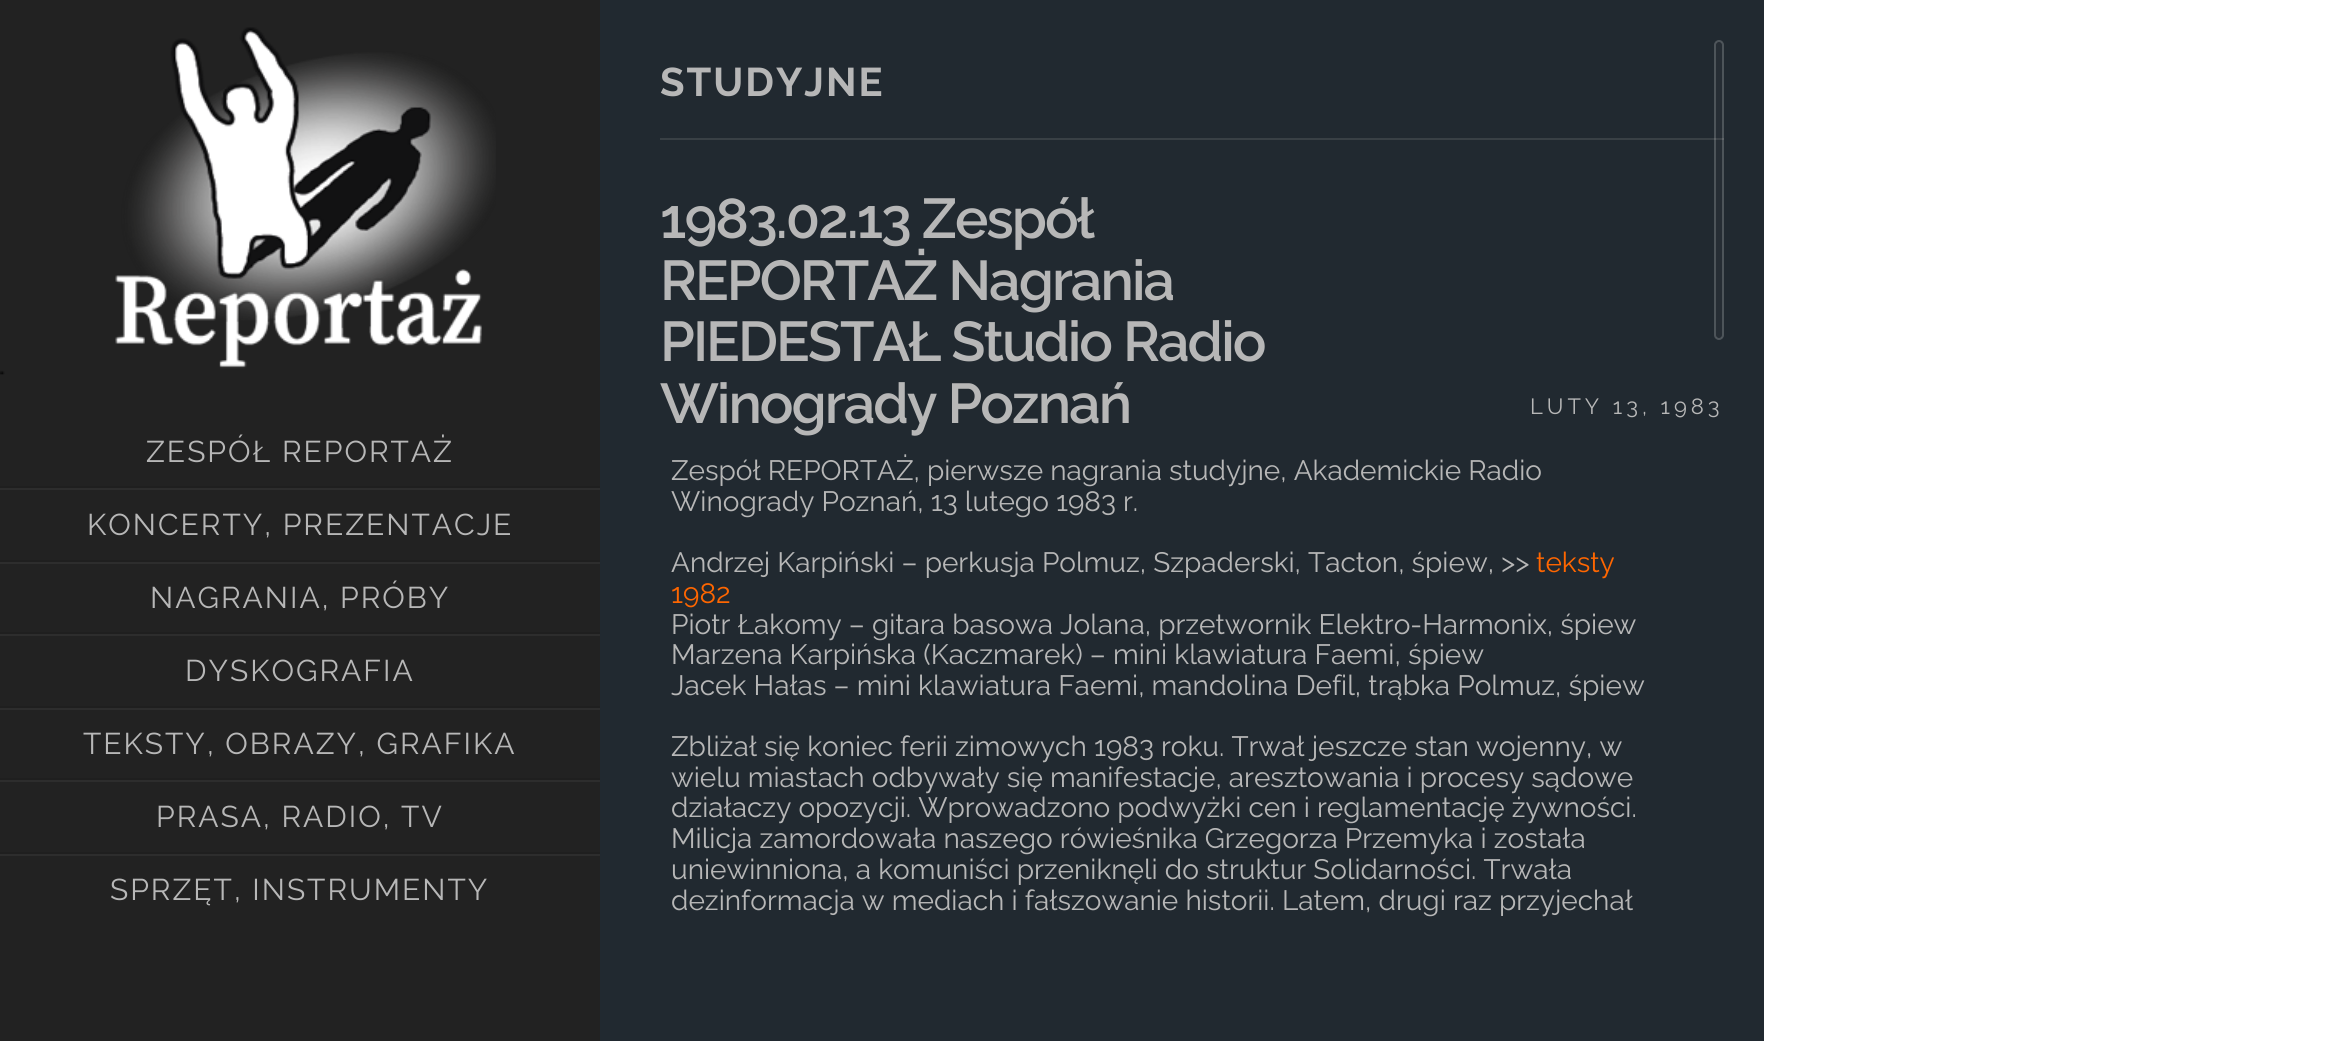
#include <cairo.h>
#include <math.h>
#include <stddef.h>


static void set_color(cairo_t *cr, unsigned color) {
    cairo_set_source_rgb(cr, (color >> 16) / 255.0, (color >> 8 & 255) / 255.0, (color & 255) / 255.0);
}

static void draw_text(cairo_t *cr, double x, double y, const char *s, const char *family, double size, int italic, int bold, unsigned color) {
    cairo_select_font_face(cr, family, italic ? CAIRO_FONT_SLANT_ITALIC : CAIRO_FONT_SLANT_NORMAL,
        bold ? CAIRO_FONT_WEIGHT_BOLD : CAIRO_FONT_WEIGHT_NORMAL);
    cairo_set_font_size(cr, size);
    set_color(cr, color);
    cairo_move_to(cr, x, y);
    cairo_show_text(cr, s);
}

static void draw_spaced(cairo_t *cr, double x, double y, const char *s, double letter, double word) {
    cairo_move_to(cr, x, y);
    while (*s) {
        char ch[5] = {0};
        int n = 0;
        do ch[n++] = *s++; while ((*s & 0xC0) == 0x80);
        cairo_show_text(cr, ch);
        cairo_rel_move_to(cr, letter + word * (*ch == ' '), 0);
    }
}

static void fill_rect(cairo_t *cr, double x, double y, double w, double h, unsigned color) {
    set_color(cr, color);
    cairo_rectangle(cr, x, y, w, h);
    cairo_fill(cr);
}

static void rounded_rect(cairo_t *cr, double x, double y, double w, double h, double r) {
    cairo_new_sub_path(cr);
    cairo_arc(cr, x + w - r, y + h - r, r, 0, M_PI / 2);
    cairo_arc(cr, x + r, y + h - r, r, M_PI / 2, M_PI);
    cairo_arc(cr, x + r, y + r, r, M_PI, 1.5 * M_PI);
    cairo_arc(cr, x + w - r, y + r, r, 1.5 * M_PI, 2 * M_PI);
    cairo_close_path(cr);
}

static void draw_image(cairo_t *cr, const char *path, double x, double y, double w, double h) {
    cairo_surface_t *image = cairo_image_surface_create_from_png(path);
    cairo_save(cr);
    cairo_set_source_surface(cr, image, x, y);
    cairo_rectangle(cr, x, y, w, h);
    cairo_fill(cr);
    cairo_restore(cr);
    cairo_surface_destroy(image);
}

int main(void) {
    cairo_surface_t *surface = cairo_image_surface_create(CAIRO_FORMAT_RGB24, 2346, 1041);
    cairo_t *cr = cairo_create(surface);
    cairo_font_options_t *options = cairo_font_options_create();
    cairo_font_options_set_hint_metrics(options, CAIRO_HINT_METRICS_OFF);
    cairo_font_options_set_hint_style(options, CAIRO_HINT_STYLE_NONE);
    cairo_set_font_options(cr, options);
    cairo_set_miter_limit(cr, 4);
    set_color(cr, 0xFFFFFF);
    cairo_paint(cr);
    fill_rect(cr, 0, 0, 600, 1041, 0x222222);
    draw_image(cr, "assets/img1.png", 0, 27, 496, 348);
    fill_rect(cr, 0, 486, 600, 2, 0x1F1F1F);
    cairo_select_font_face(cr, "Raleway", CAIRO_FONT_SLANT_NORMAL, CAIRO_FONT_WEIGHT_NORMAL);
    cairo_set_font_size(cr, 30);
    set_color(cr, 0xB7B7B7);
    draw_spaced(cr, 146, 462, "ZESPÓŁ REPORTAŻ", 2, 0);
    fill_rect(cr, 0, 488, 600, 2, 0x2D2D2D);
    fill_rect(cr, 0, 560, 600, 2, 0x1F1F1F);
    set_color(cr, 0xB7B7B7);
    draw_spaced(cr, 87, 535, "KONCERTY, PREZENTACJE", 2, 0);
    fill_rect(cr, 0, 562, 600, 2, 0x2D2D2D);
    fill_rect(cr, 0, 632, 600, 2, 0x1F1F1F);
    set_color(cr, 0xB7B7B7);
    draw_spaced(cr, 150, 608, "NAGRANIA, PRÓBY", 2, 0);
    fill_rect(cr, 0, 634, 600, 2, 0x2D2D2D);
    fill_rect(cr, 0, 706, 600, 2, 0x1F1F1F);
    set_color(cr, 0xB7B7B7);
    draw_spaced(cr, 185, 681, "DYSKOGRAFIA", 2, 0);
    fill_rect(cr, 0, 708, 600, 2, 0x2D2D2D);
    fill_rect(cr, 0, 778, 600, 2, 0x1F1F1F);
    set_color(cr, 0xB7B7B7);
    draw_spaced(cr, 83, 754, "TEKSTY, OBRAZY, GRAFIKA", 2, 0);
    fill_rect(cr, 0, 780, 600, 2, 0x2D2D2D);
    fill_rect(cr, 0, 852, 600, 2, 0x1F1F1F);
    set_color(cr, 0xB7B7B7);
    draw_spaced(cr, 156, 827, "PRASA, RADIO, TV", 2, 0);
    fill_rect(cr, 0, 854, 600, 2, 0x2D2D2D);
    set_color(cr, 0xB7B7B7);
    draw_spaced(cr, 110, 900, "SPRZĘT, INSTRUMENTY", 2, 0);
    fill_rect(cr, 600, 0, 1164, 1041, 0x212930);
    fill_rect(cr, 660, 138, 1064, 2, 0x394045);
    cairo_set_source_rgba(cr, 0.608, 0.608, 0.608, 0.04);
    cairo_rectangle(cr, 1716, 42, 6, 296);
    cairo_fill(cr);
    rounded_rect(cr, 1715, 41, 8, 298, 4);
    cairo_set_source_rgba(cr, 1, 1, 1, 0.2);
    cairo_stroke(cr);
    cairo_select_font_face(cr, "Raleway", CAIRO_FONT_SLANT_NORMAL, CAIRO_FONT_WEIGHT_BOLD);
    cairo_set_font_size(cr, 40);
    set_color(cr, 0xB7B7B7);
    draw_spaced(cr, 660, 96, "STUDYJNE", 2, 0);
    cairo_select_font_face(cr, "Raleway SemiBold", CAIRO_FONT_SLANT_NORMAL, CAIRO_FONT_WEIGHT_NORMAL);
    cairo_set_font_size(cr, 56);
    draw_spaced(cr, 660, 238, "1983.02.13 Zespół", -2, 0);
    draw_spaced(cr, 660, 300, "REPORTAŻ Nagrania", -2, 0);
    draw_spaced(cr, 660, 361, "PIEDESTAŁ Studio Radio", -2, 0);
    draw_spaced(cr, 660, 423, "Winogrady Poznań", -2, 0);
    cairo_select_font_face(cr, "Raleway", CAIRO_FONT_SLANT_NORMAL, CAIRO_FONT_WEIGHT_NORMAL);
    cairo_set_font_size(cr, 22);
    draw_spaced(cr, 1530, 414, "LUTY 13, 1983", 4, 0);
    draw_text(cr, 671, 480, "Zespół REPORTAŻ, pierwsze nagrania studyjne, Akademickie Radio", "Raleway", 28, 0, 0, 0xB7B7B7);
    draw_text(cr, 671, 511, "Winogrady Poznań, 13 lutego 1983 r.", "Raleway", 28, 0, 0, 0xB7B7B7);
    draw_text(cr, 671, 572, "Andrzej Karpiński – perkusja Polmuz, Szpaderski, Tacton, śpiew, >>", "Raleway", 28, 0, 0, 0xB7B7B7);
    draw_text(cr, 1536, 572, "teksty", "Raleway", 28, 0, 0, 0xFF6600);
    draw_text(cr, 671, 603, "1982", "Raleway", 28, 0, 0, 0xFF6600);
    draw_text(cr, 671, 634, "Piotr Łakomy – gitara basowa Jolana, przetwornik Elektro-Harmonix, śpiew", "Raleway", 28, 0, 0, 0xB7B7B7);
    draw_text(cr, 671, 664, "Marzena Karpińska (Kaczmarek) – mini klawiatura Faemi, śpiew", "Raleway", 28, 0, 0, 0xB7B7B7);
    draw_text(cr, 671, 695, "Jacek Hałas – mini klawiatura Faemi, mandolina Defil, trąbka Polmuz, śpiew", "Raleway", 28, 0, 0, 0xB7B7B7);
    draw_text(cr, 671, 756, "Zbliżał się koniec ferii zimowych 1983 roku. Trwał jeszcze stan wojenny, w", "Raleway", 28, 0, 0, 0xB7B7B7);
    draw_text(cr, 671, 787, "wielu miastach odbywały się manifestacje, aresztowania i procesy sądowe", "Raleway", 28, 0, 0, 0xB7B7B7);
    draw_text(cr, 671, 817, "działaczy opozycji. Wprowadzono podwyżki cen i reglamentację żywności.", "Raleway", 28, 0, 0, 0xB7B7B7);
    draw_text(cr, 671, 848, "Milicja zamordowała naszego rówieśnika Grzegorza Przemyka i została", "Raleway", 28, 0, 0, 0xB7B7B7);
    draw_text(cr, 671, 879, "uniewinniona, a komuniści przeniknęli do struktur Solidarności. Trwała", "Raleway", 28, 0, 0, 0xB7B7B7);
    draw_text(cr, 671, 910, "dezinformacja w mediach i fałszowanie historii. Latem, drugi raz przyjechał", "Raleway", 28, 0, 0, 0xB7B7B7);
    cairo_surface_write_to_png(surface, "output.png");
    cairo_font_options_destroy(options);
    cairo_destroy(cr);
    cairo_surface_destroy(surface);
    return 0;
}
